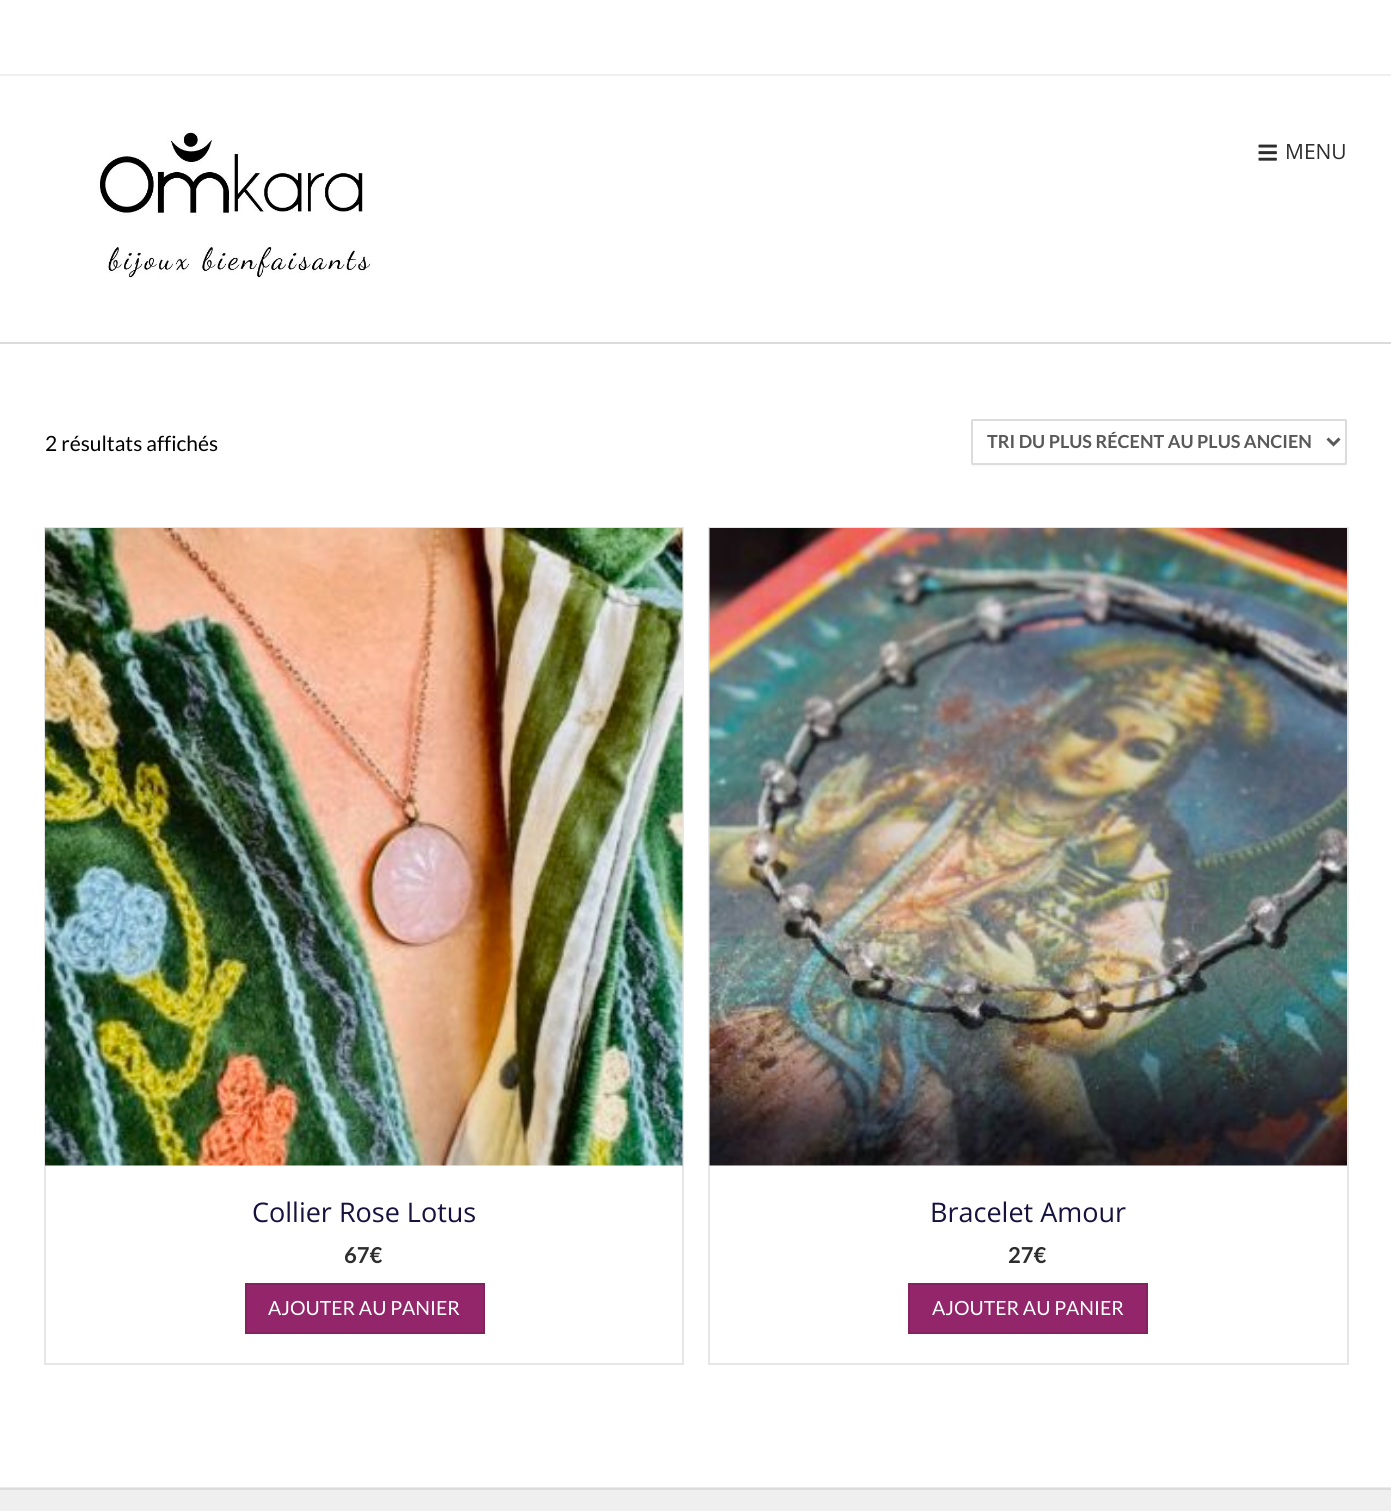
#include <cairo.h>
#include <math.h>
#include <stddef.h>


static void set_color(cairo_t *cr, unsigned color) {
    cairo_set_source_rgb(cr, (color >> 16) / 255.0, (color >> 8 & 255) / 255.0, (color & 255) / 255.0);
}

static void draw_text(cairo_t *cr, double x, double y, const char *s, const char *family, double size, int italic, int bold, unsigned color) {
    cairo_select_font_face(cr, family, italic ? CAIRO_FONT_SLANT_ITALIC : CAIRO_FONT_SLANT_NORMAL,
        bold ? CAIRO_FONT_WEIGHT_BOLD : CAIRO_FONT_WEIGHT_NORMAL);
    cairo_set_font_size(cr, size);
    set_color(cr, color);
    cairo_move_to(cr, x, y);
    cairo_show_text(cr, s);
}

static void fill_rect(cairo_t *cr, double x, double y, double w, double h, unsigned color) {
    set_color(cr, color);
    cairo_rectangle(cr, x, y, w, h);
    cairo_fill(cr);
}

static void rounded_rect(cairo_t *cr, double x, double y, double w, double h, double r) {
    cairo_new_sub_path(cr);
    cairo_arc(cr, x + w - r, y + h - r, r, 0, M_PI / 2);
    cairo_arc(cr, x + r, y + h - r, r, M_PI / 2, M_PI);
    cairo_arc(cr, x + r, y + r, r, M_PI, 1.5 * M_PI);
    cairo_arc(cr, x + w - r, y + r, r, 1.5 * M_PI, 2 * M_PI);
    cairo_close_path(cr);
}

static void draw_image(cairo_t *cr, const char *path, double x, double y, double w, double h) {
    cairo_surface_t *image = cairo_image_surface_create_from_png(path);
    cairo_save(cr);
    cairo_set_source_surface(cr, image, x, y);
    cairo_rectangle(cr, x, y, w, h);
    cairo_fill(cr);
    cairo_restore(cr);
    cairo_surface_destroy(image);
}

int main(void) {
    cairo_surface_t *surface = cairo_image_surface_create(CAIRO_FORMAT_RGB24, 1391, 1511);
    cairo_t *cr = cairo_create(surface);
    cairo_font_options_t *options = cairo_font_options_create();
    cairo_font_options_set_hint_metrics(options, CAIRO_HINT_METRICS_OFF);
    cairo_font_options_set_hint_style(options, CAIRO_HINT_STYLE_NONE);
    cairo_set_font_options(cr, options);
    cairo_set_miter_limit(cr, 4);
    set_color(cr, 0xFFFFFF);
    cairo_paint(cr);
    fill_rect(cr, 0, 342, 1391, 2, 0xDBDBDB);
    fill_rect(cr, 0, 74, 1391, 2, 0xEFEFEF);
    draw_image(cr, "assets/img1.png", 97, 129, 275, 149);
    draw_image(cr, "assets/img2.png", 1258, 144, 19, 17);
    draw_text(cr, 1285, 159, "MENU", "Open Sans", 21, 0, 0, 0x2D2D2D);
    draw_text(cr, 45, 451, "2 résultats affichés", "Lato", 21, 0, 0, 0x000000);
    set_color(cr, 0xFAFAFA);
    cairo_new_path(cr);
    cairo_move_to(cr, 971, 465);
    cairo_line_to(cr, 971, 466);
    cairo_curve_to(cr, 971, 466, 972, 467, 972, 467);
    cairo_line_to(cr, 1346, 467);
    cairo_curve_to(cr, 1346, 467, 1347, 466, 1347, 466);
    cairo_line_to(cr, 1347, 464);
    cairo_curve_to(cr, 1347, 464, 1346, 465, 1346, 465);
    cairo_line_to(cr, 972, 465);
    cairo_close_path(cr);
    cairo_fill(cr);
    rounded_rect(cr, 972, 420, 374, 44, 0.5);
    set_color(cr, 0xDCDCDC);
    cairo_stroke(cr);
    cairo_new_path(cr);
    cairo_move_to(cr, 1327.5, 438.5);
    cairo_line_to(cr, 1333.5, 444.5);
    cairo_line_to(cr, 1339.5, 438.5);
    set_color(cr, 0x595959);
    cairo_set_line_width(cr, 3);
    cairo_stroke(cr);
    draw_text(cr, 987, 448, "TRI DU PLUS RÉCENT AU PLUS ANCIEN", "Lato", 18, 0, 1, 0x595959);
    cairo_rectangle(cr, 45, 528, 638, 836);
    set_color(cr, 0xE6E6E6);
    cairo_set_line_width(cr, 2);
    cairo_stroke(cr);
    draw_image(cr, "assets/img3.png", 45, 528, 638, 638);
    draw_text(cr, 252, 1222, "Collier Rose Lotus", "Open Sans", 27, 0, 0, 0x17113D);
    draw_text(cr, 344, 1263, "67€", "Lato", 22, 0, 1, 0x2D2D2D);
    set_color(cr, 0x93256A);
    cairo_rectangle(cr, 246, 1284, 238, 49);
    cairo_fill_preserve(cr);
    set_color(cr, 0x84215F);
    cairo_stroke(cr);
    draw_text(cr, 268, 1315, "AJOUTER AU PANIER", "Lato", 19.5, 0, 0, 0xFFFFFF);
    cairo_rectangle(cr, 709, 528, 639, 836);
    set_color(cr, 0xE6E6E6);
    cairo_stroke(cr);
    draw_image(cr, "assets/img4.png", 709, 528, 638, 638);
    draw_text(cr, 930, 1222, "Bracelet Amour", "Open Sans", 27, 0, 0, 0x17113D);
    draw_text(cr, 1008, 1263, "27€", "Lato", 22, 0, 1, 0x2D2D2D);
    set_color(cr, 0x93256A);
    cairo_rectangle(cr, 909, 1284, 238, 49);
    cairo_fill_preserve(cr);
    set_color(cr, 0x84215F);
    cairo_stroke(cr);
    draw_text(cr, 932, 1315, "AJOUTER AU PANIER", "Lato", 19.5, 0, 0, 0xFFFFFF);
    fill_rect(cr, 0, 1487, 1391, 1, 0xEBEBEB);
    fill_rect(cr, 0, 1490, 1391, 21, 0xEFEFEF);
    fill_rect(cr, 0, 1488, 1391, 2, 0xDCDCDC);
    cairo_surface_write_to_png(surface, "output.png");
    cairo_font_options_destroy(options);
    cairo_destroy(cr);
    cairo_surface_destroy(surface);
    return 0;
}
